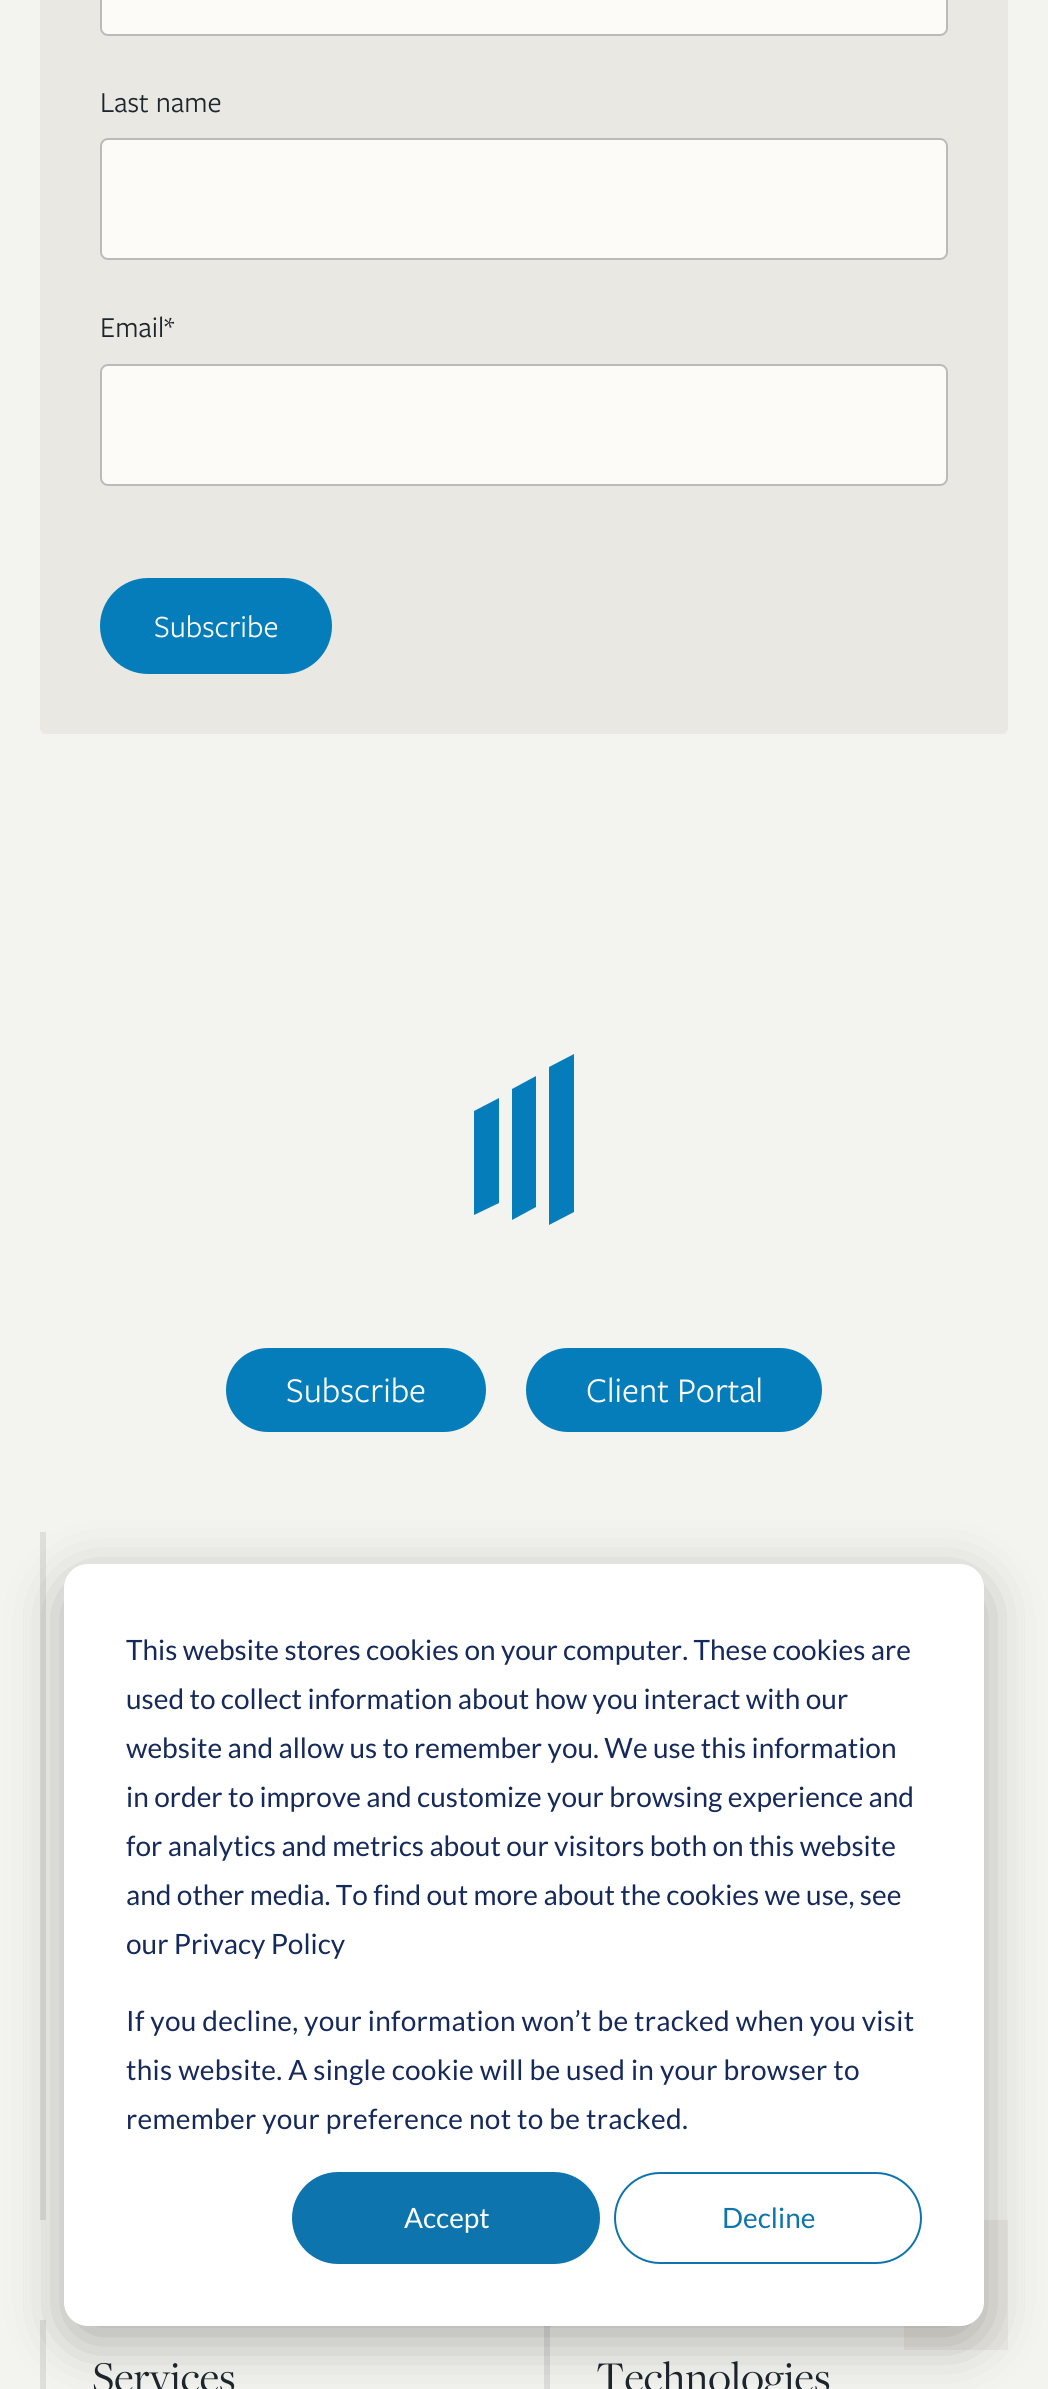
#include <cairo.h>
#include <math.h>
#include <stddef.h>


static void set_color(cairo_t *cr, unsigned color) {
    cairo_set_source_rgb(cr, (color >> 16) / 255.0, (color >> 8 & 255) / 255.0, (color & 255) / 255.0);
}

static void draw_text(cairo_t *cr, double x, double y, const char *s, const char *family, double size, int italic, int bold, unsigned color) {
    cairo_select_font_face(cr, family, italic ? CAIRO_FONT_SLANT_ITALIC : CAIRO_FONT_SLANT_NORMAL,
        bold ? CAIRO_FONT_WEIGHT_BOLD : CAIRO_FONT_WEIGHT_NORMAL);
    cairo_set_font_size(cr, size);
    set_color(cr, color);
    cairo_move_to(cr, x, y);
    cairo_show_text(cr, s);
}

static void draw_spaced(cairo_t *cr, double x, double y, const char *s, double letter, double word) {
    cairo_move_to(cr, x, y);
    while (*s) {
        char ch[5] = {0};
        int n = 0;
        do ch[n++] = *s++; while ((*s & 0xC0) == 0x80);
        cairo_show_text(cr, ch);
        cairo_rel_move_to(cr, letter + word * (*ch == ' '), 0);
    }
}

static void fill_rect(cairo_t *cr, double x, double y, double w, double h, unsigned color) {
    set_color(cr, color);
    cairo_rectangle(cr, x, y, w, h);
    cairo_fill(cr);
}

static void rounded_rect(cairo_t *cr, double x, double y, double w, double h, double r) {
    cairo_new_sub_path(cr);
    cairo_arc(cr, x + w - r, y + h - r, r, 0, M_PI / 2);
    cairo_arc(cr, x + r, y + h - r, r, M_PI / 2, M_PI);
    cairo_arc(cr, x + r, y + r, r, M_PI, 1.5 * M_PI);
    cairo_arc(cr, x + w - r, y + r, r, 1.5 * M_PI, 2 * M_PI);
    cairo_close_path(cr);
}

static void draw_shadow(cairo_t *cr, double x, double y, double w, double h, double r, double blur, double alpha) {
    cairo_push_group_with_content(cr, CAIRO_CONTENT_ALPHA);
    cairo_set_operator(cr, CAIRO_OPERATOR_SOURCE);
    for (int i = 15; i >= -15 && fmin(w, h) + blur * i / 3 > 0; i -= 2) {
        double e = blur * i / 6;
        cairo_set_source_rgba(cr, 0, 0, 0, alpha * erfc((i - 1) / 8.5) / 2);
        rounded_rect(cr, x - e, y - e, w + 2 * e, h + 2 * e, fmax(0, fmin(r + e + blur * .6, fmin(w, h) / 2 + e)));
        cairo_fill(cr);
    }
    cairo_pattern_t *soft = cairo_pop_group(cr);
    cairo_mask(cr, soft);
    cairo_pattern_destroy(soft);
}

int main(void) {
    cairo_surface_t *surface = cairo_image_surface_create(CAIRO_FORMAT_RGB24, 1048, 2389);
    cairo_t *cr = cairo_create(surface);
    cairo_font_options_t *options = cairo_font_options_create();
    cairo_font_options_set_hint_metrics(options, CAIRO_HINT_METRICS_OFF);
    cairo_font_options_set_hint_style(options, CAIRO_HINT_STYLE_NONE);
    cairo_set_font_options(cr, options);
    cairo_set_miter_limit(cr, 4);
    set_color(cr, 0xF3F3EF);
    cairo_paint(cr);
    set_color(cr, 0xE9E8E2);
    rounded_rect(cr, 40, -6, 968, 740, 6);
    cairo_fill(cr);
    set_color(cr, 0xFCFBF8);
    rounded_rect(cr, 100, -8, 848, 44, 8);
    cairo_fill(cr);
    rounded_rect(cr, 101, -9, 846, 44, 7);
    cairo_set_source_rgba(cr, 0.114, 0.145, 0.176, 0.3);
    cairo_stroke(cr);
    draw_text(cr, 100, 112, "Last name", "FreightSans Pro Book", 30, 0, 0, 0x1D252D);
    set_color(cr, 0xFCFBF8);
    rounded_rect(cr, 100, 138, 848, 122, 8);
    cairo_fill(cr);
    rounded_rect(cr, 101, 139, 846, 120, 7);
    cairo_set_source_rgba(cr, 0.114, 0.145, 0.176, 0.3);
    cairo_stroke(cr);
    draw_text(cr, 100, 337, "Email*", "FreightSans Pro Book", 30, 0, 0, 0x1D252D);
    set_color(cr, 0xFCFBF8);
    rounded_rect(cr, 100, 364, 848, 122, 8);
    cairo_fill(cr);
    rounded_rect(cr, 101, 365, 846, 120, 7);
    cairo_set_source_rgba(cr, 0.114, 0.145, 0.176, 0.3);
    cairo_stroke(cr);
    set_color(cr, 0x047DBA);
    rounded_rect(cr, 100, 578, 232, 96, 48);
    cairo_fill(cr);
    draw_text(cr, 154, 637, "Subscribe", "FreightSans Pro Book", 32, 0, 0, 0xFCFBF8);
    set_color(cr, 0x047DBA);
    cairo_new_path(cr);
    cairo_move_to(cr, 499, 1203);
    cairo_line_to(cr, 474, 1215);
    cairo_line_to(cr, 474, 1111);
    cairo_line_to(cr, 499, 1098);
    cairo_close_path(cr);
    cairo_fill(cr);
    cairo_new_path(cr);
    cairo_move_to(cr, 536, 1207);
    cairo_line_to(cr, 512, 1220);
    cairo_line_to(cr, 512, 1089);
    cairo_line_to(cr, 536, 1076);
    cairo_close_path(cr);
    cairo_fill(cr);
    cairo_new_path(cr);
    cairo_move_to(cr, 574, 1212);
    cairo_line_to(cr, 549, 1225);
    cairo_line_to(cr, 549, 1067);
    cairo_line_to(cr, 574, 1054);
    cairo_close_path(cr);
    cairo_fill(cr);
    rounded_rect(cr, 226, 1348, 260, 84, 42);
    cairo_fill(cr);
    draw_text(cr, 286, 1402, "Subscribe", "FreightSans Pro Book", 36, 0, 0, 0xFCFBF8);
    set_color(cr, 0x047DBA);
    rounded_rect(cr, 526, 1348, 296, 84, 42);
    cairo_fill(cr);
    draw_text(cr, 586, 1402, "Client Portal", "FreightSans Pro Book", 36, 0, 0, 0xFCFBF8);
    fill_rect(cr, 40, 1532, 6, 688, 0xDEDEDC);
    fill_rect(cr, 40, 2320, 6, 69, 0xDEDEDC);
    draw_text(cr, 92, 2392, "Services", "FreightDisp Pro", 45.5, 0, 0, 0x1D252D);
    fill_rect(cr, 544, 2320, 6, 69, 0xDEDEDC);
    draw_text(cr, 596, 2392, "Technologies", "FreightDisp Pro", 45.5, 0, 0, 0x1D252D);
    fill_rect(cr, 904, 2220, 104, 130, 0xE9E8E2);
    set_color(cr, 0x000000);
    draw_shadow(cr, 64, 1580, 920, 762, 24, 28, 0.28);
    set_color(cr, 0xFFFFFF);
    rounded_rect(cr, 64, 1564, 920, 762, 24);
    cairo_fill(cr);
    draw_text(cr, 126, 1660, "This website stores cookies on your computer. These cookies are", "Lato", 28, 0, 0, 0x15295A);
    draw_text(cr, 126, 1709, "used to collect information about how you interact with our", "Lato", 28, 0, 0, 0x15295A);
    draw_text(cr, 126, 1758, "website and allow us to remember you. We use this information", "Lato", 28, 0, 0, 0x15295A);
    draw_text(cr, 126, 1807, "in order to improve and customize your browsing experience and", "Lato", 28, 0, 0, 0x15295A);
    draw_text(cr, 126, 1856, "for analytics and metrics about our visitors both on this website", "Lato", 28, 0, 0, 0x15295A);
    draw_text(cr, 126, 1905, "and other media. To find out more about the cookies we use, see", "Lato", 28, 0, 0, 0x15295A);
    draw_text(cr, 126, 1954, "our Privacy Policy", "Lato", 28, 0, 0, 0x15295A);
    draw_spaced(cr, 126, 2031, "If you decline, your information won’t be tracked when you visit", 0.28, 0);
    draw_spaced(cr, 126, 2080, "this website. A single cookie will be used in your browser to", 0.28, 0);
    draw_spaced(cr, 126, 2129, "remember your preference not to be tracked.", 0.28, 0);
    set_color(cr, 0x0E74AE);
    rounded_rect(cr, 293, 2173, 306, 90, 45);
    cairo_fill_preserve(cr);
    cairo_stroke(cr);
    draw_text(cr, 404, 2228, "Accept", "Lato", 28, 0, 0, 0xFFFFFF);
    rounded_rect(cr, 615, 2173, 306, 90, 45);
    set_color(cr, 0x0E74AE);
    cairo_stroke(cr);
    draw_text(cr, 722, 2228, "Decline", "Lato", 28, 0, 0, 0x0E74AE);
    cairo_surface_write_to_png(surface, "output.png");
    cairo_font_options_destroy(options);
    cairo_destroy(cr);
    cairo_surface_destroy(surface);
    return 0;
}
